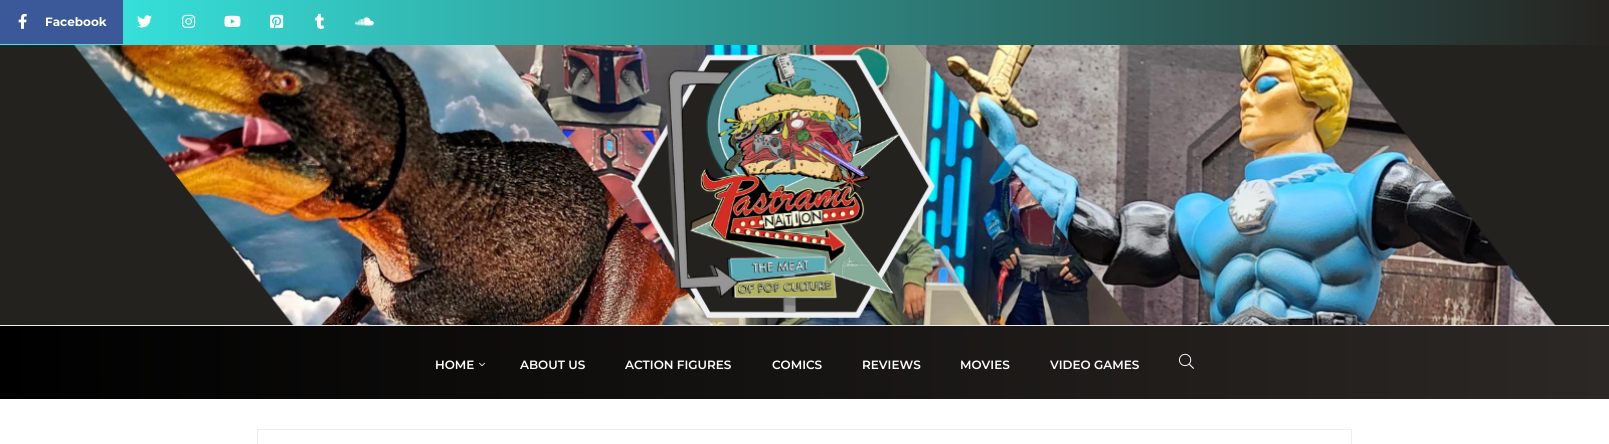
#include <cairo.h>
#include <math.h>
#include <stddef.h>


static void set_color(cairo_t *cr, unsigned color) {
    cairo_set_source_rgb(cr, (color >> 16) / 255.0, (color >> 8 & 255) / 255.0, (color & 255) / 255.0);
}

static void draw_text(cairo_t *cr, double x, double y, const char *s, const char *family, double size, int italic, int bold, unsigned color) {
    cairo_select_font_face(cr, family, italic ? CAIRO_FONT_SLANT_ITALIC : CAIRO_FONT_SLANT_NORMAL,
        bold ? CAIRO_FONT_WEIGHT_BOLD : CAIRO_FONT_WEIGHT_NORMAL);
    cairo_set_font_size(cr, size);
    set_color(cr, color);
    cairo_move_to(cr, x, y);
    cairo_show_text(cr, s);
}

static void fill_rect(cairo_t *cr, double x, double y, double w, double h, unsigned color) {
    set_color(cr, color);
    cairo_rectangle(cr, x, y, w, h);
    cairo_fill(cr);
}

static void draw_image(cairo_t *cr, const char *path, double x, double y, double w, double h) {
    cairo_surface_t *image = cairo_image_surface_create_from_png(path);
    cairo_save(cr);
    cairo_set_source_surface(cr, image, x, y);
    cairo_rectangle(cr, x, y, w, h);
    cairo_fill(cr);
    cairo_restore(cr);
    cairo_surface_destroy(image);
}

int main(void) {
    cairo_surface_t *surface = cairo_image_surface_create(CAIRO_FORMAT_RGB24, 1609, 444);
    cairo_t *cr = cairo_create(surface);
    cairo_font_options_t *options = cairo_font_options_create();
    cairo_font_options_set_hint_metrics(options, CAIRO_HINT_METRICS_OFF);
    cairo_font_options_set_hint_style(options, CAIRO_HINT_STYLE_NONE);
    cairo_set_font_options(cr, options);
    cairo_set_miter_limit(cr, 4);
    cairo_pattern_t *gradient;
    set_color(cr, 0xFFFFFF);
    cairo_paint(cr);
    gradient = cairo_pattern_create_linear(0, 22, 1609, 22);
    cairo_pattern_add_color_stop_rgba(gradient, 0, 0.216, 0.937, 0.914, 1);
    cairo_pattern_add_color_stop_rgba(gradient, 1, 0.149, 0.137, 0.125, 1);
    cairo_set_source(cr, gradient);
    cairo_pattern_destroy(gradient);
    cairo_rectangle(cr, 0, 0, 1609, 45);
    cairo_fill(cr);
    fill_rect(cr, 0, 0, 123, 44, 0x3B5998);
    draw_image(cr, "assets/img1.png", 18, 13, 9, 16);
    draw_text(cr, 45, 26, "Facebook", "Montserrat", 12, 0, 1, 0xFFFFFF);
    draw_image(cr, "assets/img2.png", 137, 15, 15, 13);
    draw_image(cr, "assets/img3.png", 182, 14, 14, 14);
    draw_image(cr, "assets/img4.png", 224, 15, 17, 12);
    draw_image(cr, "assets/img5.png", 270, 14, 14, 14);
    draw_image(cr, "assets/img6.png", 315, 13, 10, 16);
    draw_image(cr, "assets/img7.png", 355, 17, 19, 9);
    draw_image(cr, "assets/img8.png", 0, 45, 1609, 280);
    fill_rect(cr, 0, 325, 1609, 1, 0xEEEEEE);
    gradient = cairo_pattern_create_linear(0, 363, 1609, 362);
    cairo_pattern_add_color_stop_rgba(gradient, 0, 0, 0, 0, 1);
    cairo_pattern_add_color_stop_rgba(gradient, 1, 0.173, 0.157, 0.145, 1);
    cairo_set_source(cr, gradient);
    cairo_pattern_destroy(gradient);
    cairo_rectangle(cr, 0, 326, 1609, 73);
    cairo_fill(cr);
    draw_text(cr, 435, 369, "HOME", "Montserrat SemiBold", 12, 0, 0, 0xFFFFFF);
    draw_image(cr, "assets/img9.png", 479, 362, 6, 5);
    draw_text(cr, 520, 369, "ABOUT US", "Montserrat SemiBold", 12, 0, 0, 0xFFFFFF);
    draw_text(cr, 625, 369, "ACTION FIGURES", "Montserrat SemiBold", 12, 0, 0, 0xFFFFFF);
    draw_text(cr, 772, 369, "COMICS", "Montserrat SemiBold", 12, 0, 0, 0xFFFFFF);
    draw_text(cr, 862, 369, "REVIEWS", "Montserrat SemiBold", 12, 0, 0, 0xFFFFFF);
    draw_text(cr, 960, 369, "MOVIES", "Montserrat SemiBold", 12, 0, 0, 0xFFFFFF);
    draw_text(cr, 1050, 369, "VIDEO GAMES", "Montserrat SemiBold", 12, 0, 0, 0xFFFFFF);
    draw_image(cr, "assets/img10.png", 1179, 353, 15, 16);
    cairo_rectangle(cr, 257.5, 429.5, 1094, 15);
    set_color(cr, 0xEEEEEE);
    cairo_set_line_width(cr, 1);
    cairo_stroke(cr);
    cairo_surface_write_to_png(surface, "output.png");
    cairo_font_options_destroy(options);
    cairo_destroy(cr);
    cairo_surface_destroy(surface);
    return 0;
}
